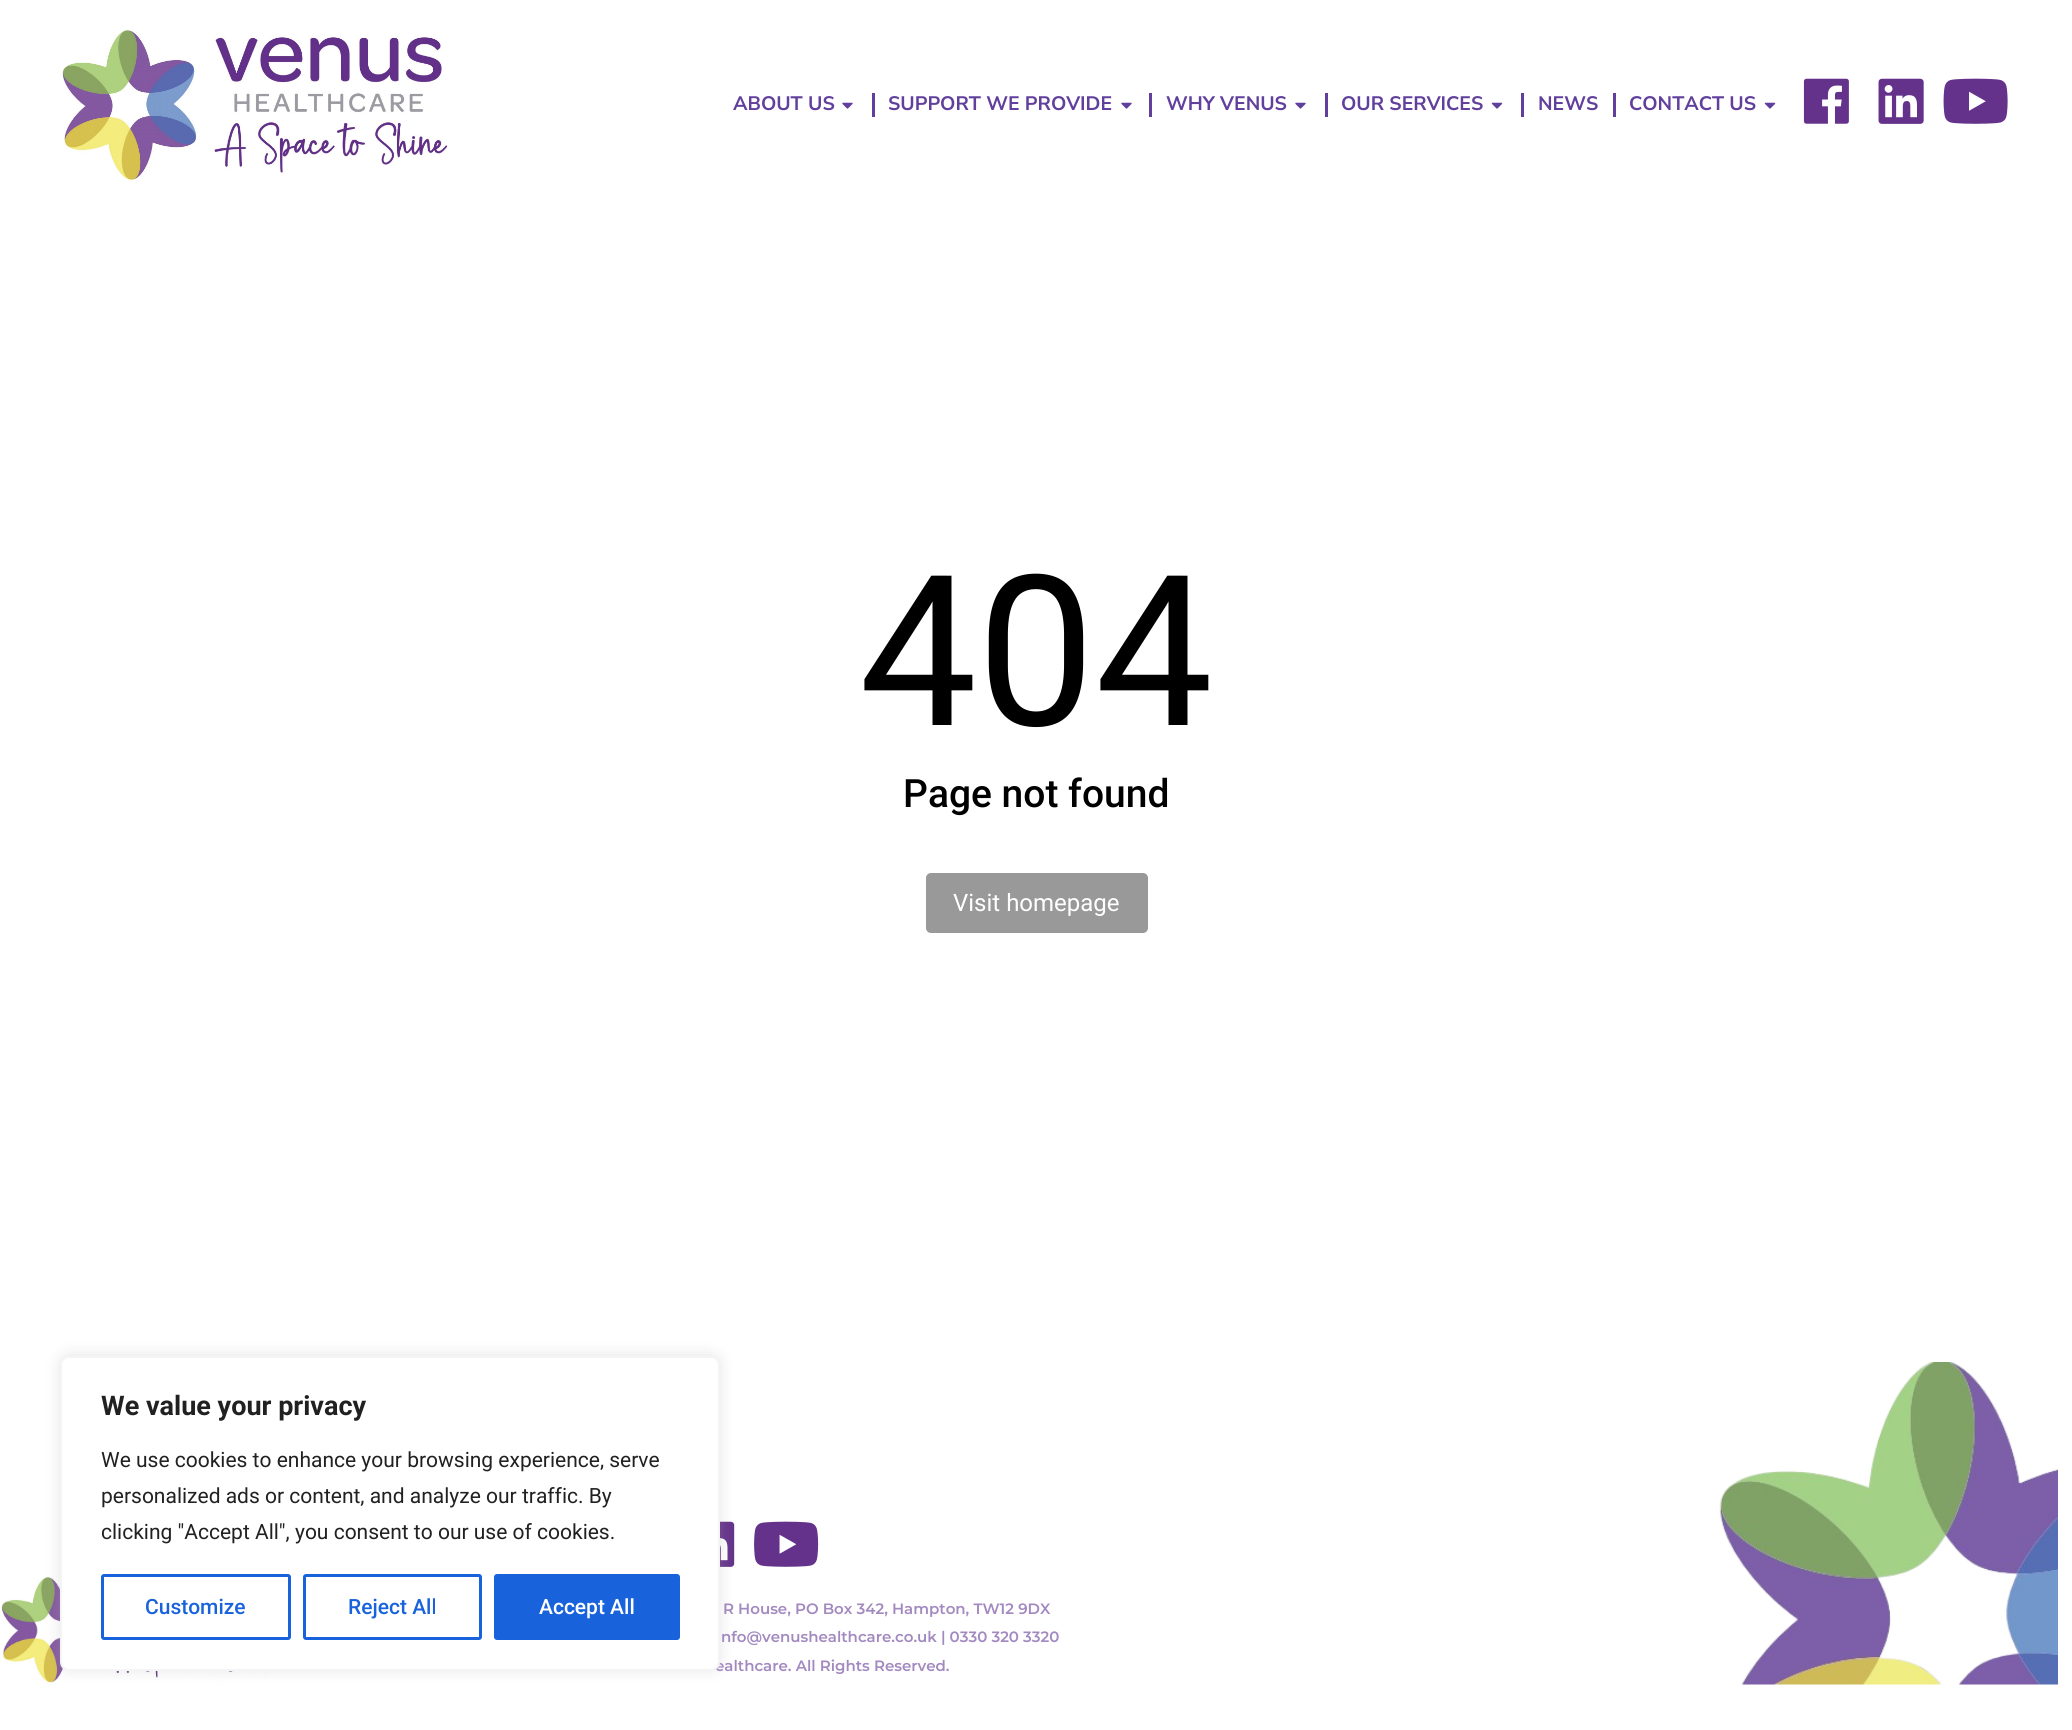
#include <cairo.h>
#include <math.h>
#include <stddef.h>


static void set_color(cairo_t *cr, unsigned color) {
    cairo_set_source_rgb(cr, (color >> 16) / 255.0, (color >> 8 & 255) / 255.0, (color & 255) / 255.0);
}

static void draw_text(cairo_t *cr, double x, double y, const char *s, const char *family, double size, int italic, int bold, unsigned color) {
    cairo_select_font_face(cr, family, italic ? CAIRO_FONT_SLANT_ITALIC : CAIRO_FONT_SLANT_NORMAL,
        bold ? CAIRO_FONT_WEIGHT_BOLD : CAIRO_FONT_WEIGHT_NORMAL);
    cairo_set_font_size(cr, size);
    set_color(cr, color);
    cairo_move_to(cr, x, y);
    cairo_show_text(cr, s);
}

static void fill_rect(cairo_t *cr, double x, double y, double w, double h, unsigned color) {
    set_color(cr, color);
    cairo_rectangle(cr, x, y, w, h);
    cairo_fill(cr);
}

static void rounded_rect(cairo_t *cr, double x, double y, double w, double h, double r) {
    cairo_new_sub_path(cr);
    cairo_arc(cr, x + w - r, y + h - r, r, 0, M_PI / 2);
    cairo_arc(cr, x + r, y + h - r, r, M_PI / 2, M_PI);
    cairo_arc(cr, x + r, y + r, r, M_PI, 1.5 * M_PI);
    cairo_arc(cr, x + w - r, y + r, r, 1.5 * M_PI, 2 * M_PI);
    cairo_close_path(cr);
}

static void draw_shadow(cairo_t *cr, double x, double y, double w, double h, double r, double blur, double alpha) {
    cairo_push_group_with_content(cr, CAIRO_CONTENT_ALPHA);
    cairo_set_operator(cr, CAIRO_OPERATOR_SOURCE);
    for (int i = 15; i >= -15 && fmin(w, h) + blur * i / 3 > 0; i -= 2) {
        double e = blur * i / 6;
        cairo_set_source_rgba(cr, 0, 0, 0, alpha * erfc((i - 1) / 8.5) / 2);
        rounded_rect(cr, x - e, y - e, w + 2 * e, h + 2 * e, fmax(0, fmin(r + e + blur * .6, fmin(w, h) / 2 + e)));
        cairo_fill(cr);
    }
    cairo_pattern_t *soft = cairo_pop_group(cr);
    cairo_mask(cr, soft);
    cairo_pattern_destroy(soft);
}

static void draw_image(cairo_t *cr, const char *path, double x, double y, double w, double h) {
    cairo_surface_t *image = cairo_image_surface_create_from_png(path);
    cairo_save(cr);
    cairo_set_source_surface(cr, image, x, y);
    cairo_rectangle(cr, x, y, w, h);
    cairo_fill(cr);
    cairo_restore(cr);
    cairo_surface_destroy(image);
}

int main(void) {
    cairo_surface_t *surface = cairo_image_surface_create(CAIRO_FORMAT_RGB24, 2072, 1730);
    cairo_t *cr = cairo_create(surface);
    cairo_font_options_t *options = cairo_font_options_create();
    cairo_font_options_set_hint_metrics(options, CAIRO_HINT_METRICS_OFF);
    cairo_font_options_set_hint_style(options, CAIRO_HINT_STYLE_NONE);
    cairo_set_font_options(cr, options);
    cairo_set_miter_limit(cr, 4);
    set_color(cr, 0xFFFFFF);
    cairo_paint(cr);
    draw_image(cr, "assets/img7.png", 1, 1577, 274, 107);
    draw_image(cr, "assets/img8.png", 720, 1521, 15, 46);
    set_color(cr, 0xACABAB);
    draw_shadow(cr, 60, 1355, 660, 315, 9, 7.5, 0.3);
    draw_text(cr, 715, 1671, "ealthcare. All Rights Reserved.", "Montserrat SemiBold", 15, 0, 0, 0xA289C0);
    set_color(cr, 0xFFFFFF);
    rounded_rect(cr, 61, 1357, 658, 313, 8);
    cairo_fill_preserve(cr);
    set_color(cr, 0xF4F4F4);
    cairo_stroke(cr);
    draw_text(cr, 101, 1415, "We value your privacy", "Roboto", 27, 0, 1, 0x212121);
    draw_text(cr, 101, 1467, "We use cookies to enhance your browsing experience, serve", "Roboto", 21, 0, 0, 0x212121);
    draw_text(cr, 101, 1503, "personalized ads or content, and analyze our traffic. By", "Roboto", 21, 0, 0, 0x212121);
    draw_text(cr, 101, 1539, "clicking \"Accept All\", you consent to our use of cookies.", "Roboto", 21, 0, 0, 0x212121);
    rounded_rect(cr, 102.5, 1575.5, 187, 63, 1.5);
    set_color(cr, 0x1863DC);
    cairo_set_line_width(cr, 3);
    cairo_stroke(cr);
    draw_text(cr, 145, 1614, "Customize", "Roboto Medium", 21, 0, 0, 0x1863DC);
    rounded_rect(cr, 304.5, 1575.5, 176, 63, 1.5);
    cairo_stroke(cr);
    draw_text(cr, 348, 1614, "Reject All", "Roboto Medium", 21, 0, 0, 0x1863DC);
    rounded_rect(cr, 495.5, 1575.5, 183, 63, 1.5);
    cairo_fill_preserve(cr);
    cairo_stroke(cr);
    draw_text(cr, 539, 1614, "Accept All", "Roboto Medium", 21, 0, 0, 0xFFFFFF);
    draw_image(cr, "assets/img1.png", 60, 29, 390, 153);
    draw_text(cr, 733, 110, "ABOUT US", "Nunito Sans", 19.5, 0, 1, 0x613F9C);
    draw_image(cr, "assets/img2.png", 842, 102, 11, 7);
    fill_rect(cr, 872, 93, 3, 24, 0x613F9C);
    draw_text(cr, 888, 110, "SUPPORT WE PROVIDE", "Nunito Sans", 19.5, 0, 1, 0x613F9C);
    draw_image(cr, "assets/img2.png", 1121, 102, 11, 7);
    fill_rect(cr, 1149, 93, 3, 24, 0x613F9C);
    draw_text(cr, 1166, 110, "WHY VENUS", "Nunito Sans", 19.5, 0, 1, 0x613F9C);
    draw_image(cr, "assets/img2.png", 1295, 102, 11, 7);
    fill_rect(cr, 1325, 93, 3, 24, 0x613F9C);
    draw_text(cr, 1341, 110, "OUR SERVICES", "Nunito Sans", 19.5, 0, 1, 0x613F9C);
    draw_image(cr, "assets/img3.png", 1491, 102, 12, 7);
    fill_rect(cr, 1521, 93, 3, 24, 0x613F9C);
    draw_text(cr, 1538, 110, "NEWS", "Nunito Sans", 19.5, 0, 1, 0x613F9C);
    fill_rect(cr, 1613, 93, 3, 24, 0x613F9C);
    draw_text(cr, 1629, 110, "CONTACT US", "Nunito Sans", 19.5, 0, 1, 0x613F9C);
    draw_image(cr, "assets/img3.png", 1764, 102, 12, 7);
    draw_image(cr, "assets/img4.png", 1803, 78, 46, 46);
    draw_image(cr, "assets/img5.png", 1878, 78, 46, 46);
    draw_image(cr, "assets/img6.png", 1943, 78, 65, 46);
    draw_text(cr, 859, 725, "404", "Roboto", 210, 0, 0, 0x000000);
    draw_text(cr, 903, 807, "Page not found", "Roboto Medium", 39, 0, 0, 0x000000);
    set_color(cr, 0x999999);
    rounded_rect(cr, 926, 873, 222, 60, 5);
    cairo_fill(cr);
    draw_text(cr, 953, 911, "Visit homepage", "Roboto", 24, 0, 0, 0xFFFFFF);
    draw_image(cr, "assets/img9.png", 754, 1521, 65, 46);
    draw_text(cr, 723, 1614, "R House, PO Box 342, Hampton, TW12 9DX", "Montserrat SemiBold", 15, 0, 0, 0xA289C0);
    draw_text(cr, 721, 1642, "nfo@venushealthcare.co.uk | 0330 320 3320", "Montserrat SemiBold", 15, 0, 0, 0xA289C0);
    draw_image(cr, "assets/img10.png", 1719, 1362, 339, 323);
    cairo_surface_write_to_png(surface, "output.png");
    cairo_font_options_destroy(options);
    cairo_destroy(cr);
    cairo_surface_destroy(surface);
    return 0;
}
